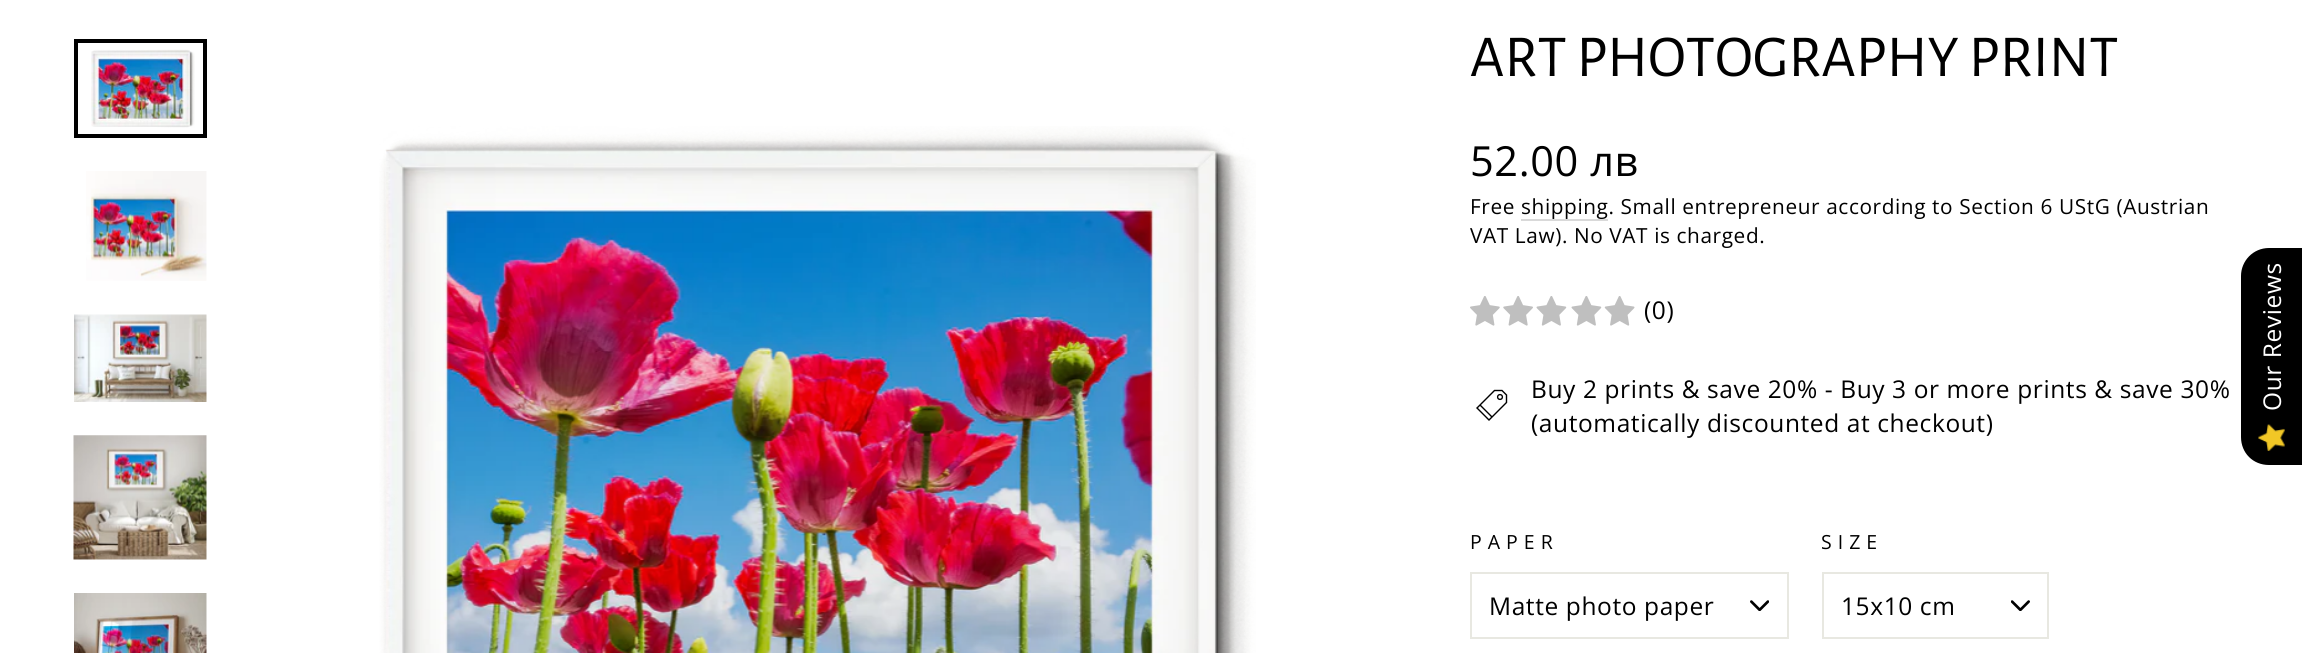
#include <cairo.h>
#include <math.h>
#include <stddef.h>


static void set_color(cairo_t *cr, unsigned color) {
    cairo_set_source_rgb(cr, (color >> 16) / 255.0, (color >> 8 & 255) / 255.0, (color & 255) / 255.0);
}

static void draw_text(cairo_t *cr, double x, double y, const char *s, const char *family, double size, int italic, int bold, unsigned color) {
    cairo_select_font_face(cr, family, italic ? CAIRO_FONT_SLANT_ITALIC : CAIRO_FONT_SLANT_NORMAL,
        bold ? CAIRO_FONT_WEIGHT_BOLD : CAIRO_FONT_WEIGHT_NORMAL);
    cairo_set_font_size(cr, size);
    set_color(cr, color);
    cairo_move_to(cr, x, y);
    cairo_show_text(cr, s);
}

static void draw_spaced(cairo_t *cr, double x, double y, const char *s, double letter, double word) {
    cairo_move_to(cr, x, y);
    while (*s) {
        char ch[5] = {0};
        int n = 0;
        do ch[n++] = *s++; while ((*s & 0xC0) == 0x80);
        cairo_show_text(cr, ch);
        cairo_rel_move_to(cr, letter + word * (*ch == ' '), 0);
    }
}

static void fill_rect(cairo_t *cr, double x, double y, double w, double h, unsigned color) {
    set_color(cr, color);
    cairo_rectangle(cr, x, y, w, h);
    cairo_fill(cr);
}

static void draw_image(cairo_t *cr, const char *path, double x, double y, double w, double h) {
    cairo_surface_t *image = cairo_image_surface_create_from_png(path);
    cairo_save(cr);
    cairo_set_source_surface(cr, image, x, y);
    cairo_rectangle(cr, x, y, w, h);
    cairo_fill(cr);
    cairo_restore(cr);
    cairo_surface_destroy(image);
}

int main(void) {
    cairo_surface_t *surface = cairo_image_surface_create(CAIRO_FORMAT_RGB24, 2302, 653);
    cairo_t *cr = cairo_create(surface);
    cairo_font_options_t *options = cairo_font_options_create();
    cairo_font_options_set_hint_metrics(options, CAIRO_HINT_METRICS_OFF);
    cairo_font_options_set_hint_style(options, CAIRO_HINT_STYLE_NONE);
    cairo_set_font_options(cr, options);
    cairo_set_miter_limit(cr, 4);
    set_color(cr, 0xFFFFFF);
    cairo_paint(cr);
    draw_image(cr, "assets/img1.png", 91, 49, 104, 79);
    cairo_rectangle(cr, 76, 41, 129, 95);
    set_color(cr, 0x000000);
    cairo_set_line_width(cr, 4);
    cairo_stroke(cr);
    draw_image(cr, "assets/img2.png", 86, 171, 121, 110);
    draw_image(cr, "assets/img3.png", 74, 314, 133, 88);
    draw_image(cr, "assets/img4.png", 73, 435, 134, 125);
    draw_image(cr, "assets/img5.png", 74, 593, 133, 60);
    draw_image(cr, "assets/img6.png", 379, 126, 877, 527);
    draw_text(cr, 1470, 76, "ART PHOTOGRAPHY PRINT", "Alegreya Sans", 59.5, 0, 0, 0x000000);
    cairo_select_font_face(cr, "Open Sans", CAIRO_FONT_SLANT_NORMAL, CAIRO_FONT_WEIGHT_NORMAL);
    cairo_set_font_size(cr, 41.5);
    draw_spaced(cr, 1470, 176, "52.00 лв", 0.6, 0);
    cairo_set_font_size(cr, 20.8);
    draw_spaced(cr, 1470, 214, "Free shipping. Small entrepreneur according to Section 6 UStG (Austrian", 0.6, 0);
    fill_rect(cr, 1521, 219, 87, 2, 0xD9D9D9);
    set_color(cr, 0x000000);
    draw_spaced(cr, 1470, 243, "VAT Law). No VAT is charged.", 0.6, 0);
    draw_image(cr, "assets/img7.png", 1470, 296, 30, 30);
    draw_image(cr, "assets/img8.png", 1503, 296, 30, 30);
    draw_image(cr, "assets/img9.png", 1536, 296, 31, 30);
    draw_image(cr, "assets/img9.png", 1571, 296, 31, 30);
    draw_image(cr, "assets/img10.png", 1604, 296, 31, 30);
    cairo_set_font_size(cr, 24.5);
    draw_spaced(cr, 1644, 319, "(0)", 0.6, 0);
    cairo_new_path(cr);
    cairo_move_to(cr, 1502, 390.5);
    cairo_line_to(cr, 1494.5, 390.5);
    cairo_line_to(cr, 1477, 408);
    cairo_line_to(cr, 1489, 420);
    cairo_line_to(cr, 1506.5, 402.5);
    cairo_line_to(cr, 1506.5, 395);
    cairo_close_path(cr);
    cairo_set_line_width(cr, 1.4);
    cairo_stroke(cr);
    cairo_arc(cr, 1500, 397, 2.4, 0, 2 * M_PI);
    cairo_stroke(cr);
    cairo_new_path(cr);
    cairo_move_to(cr, 1480, 405);
    cairo_line_to(cr, 1492, 417);
    cairo_stroke(cr);
    draw_spaced(cr, 1531, 398, "Buy 2 prints & save 20% - Buy 3 or more prints & save 30%", 0.6, 0);
    draw_spaced(cr, 1531, 432, "(automatically discounted at checkout)", 0.6, 0);
    cairo_set_font_size(cr, 19.5);
    draw_spaced(cr, 1470, 549, "PAPER", 6, 0);
    draw_image(cr, "assets/img11.png", 1750, 600, 19, 11);
    cairo_rectangle(cr, 1471, 573, 317, 65);
    set_color(cr, 0xE8E8E1);
    cairo_set_line_width(cr, 2);
    cairo_stroke(cr);
    cairo_set_font_size(cr, 24.5);
    set_color(cr, 0x000000);
    draw_spaced(cr, 1489, 615, "Matte photo paper", 0.6, 0);
    cairo_set_font_size(cr, 19.5);
    draw_spaced(cr, 1821, 549, "SIZE", 6, 0);
    draw_image(cr, "assets/img12.png", 2011, 600, 19, 11);
    cairo_rectangle(cr, 1823, 573, 225, 65);
    set_color(cr, 0xE8E8E1);
    cairo_stroke(cr);
    cairo_set_font_size(cr, 24.5);
    set_color(cr, 0x000000);
    draw_spaced(cr, 1841, 615, "15x10 cm", 0.6, 0);
    cairo_new_path(cr);
    cairo_move_to(cr, 2241, 437);
    cairo_line_to(cr, 2241, 276);
    cairo_curve_to(cr, 2241, 261, 2253, 248, 2269, 248);
    cairo_line_to(cr, 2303, 248);
    cairo_line_to(cr, 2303, 465);
    cairo_line_to(cr, 2269, 465);
    cairo_curve_to(cr, 2253, 465, 2241, 453, 2241, 437);
    cairo_close_path(cr);
    cairo_fill(cr);
    set_color(cr, 0xFFFFFF);
    cairo_save(cr);
    cairo_translate(cr, 2281, 411);
    cairo_rotate(cr, -90 * M_PI / 180);
    draw_spaced(cr, 0, 0, "Our Reviews", 0.6, 0);
    cairo_restore(cr);
    draw_image(cr, "assets/img13.png", 2258, 424, 27, 27);
    cairo_surface_write_to_png(surface, "output.png");
    cairo_font_options_destroy(options);
    cairo_destroy(cr);
    cairo_surface_destroy(surface);
    return 0;
}
